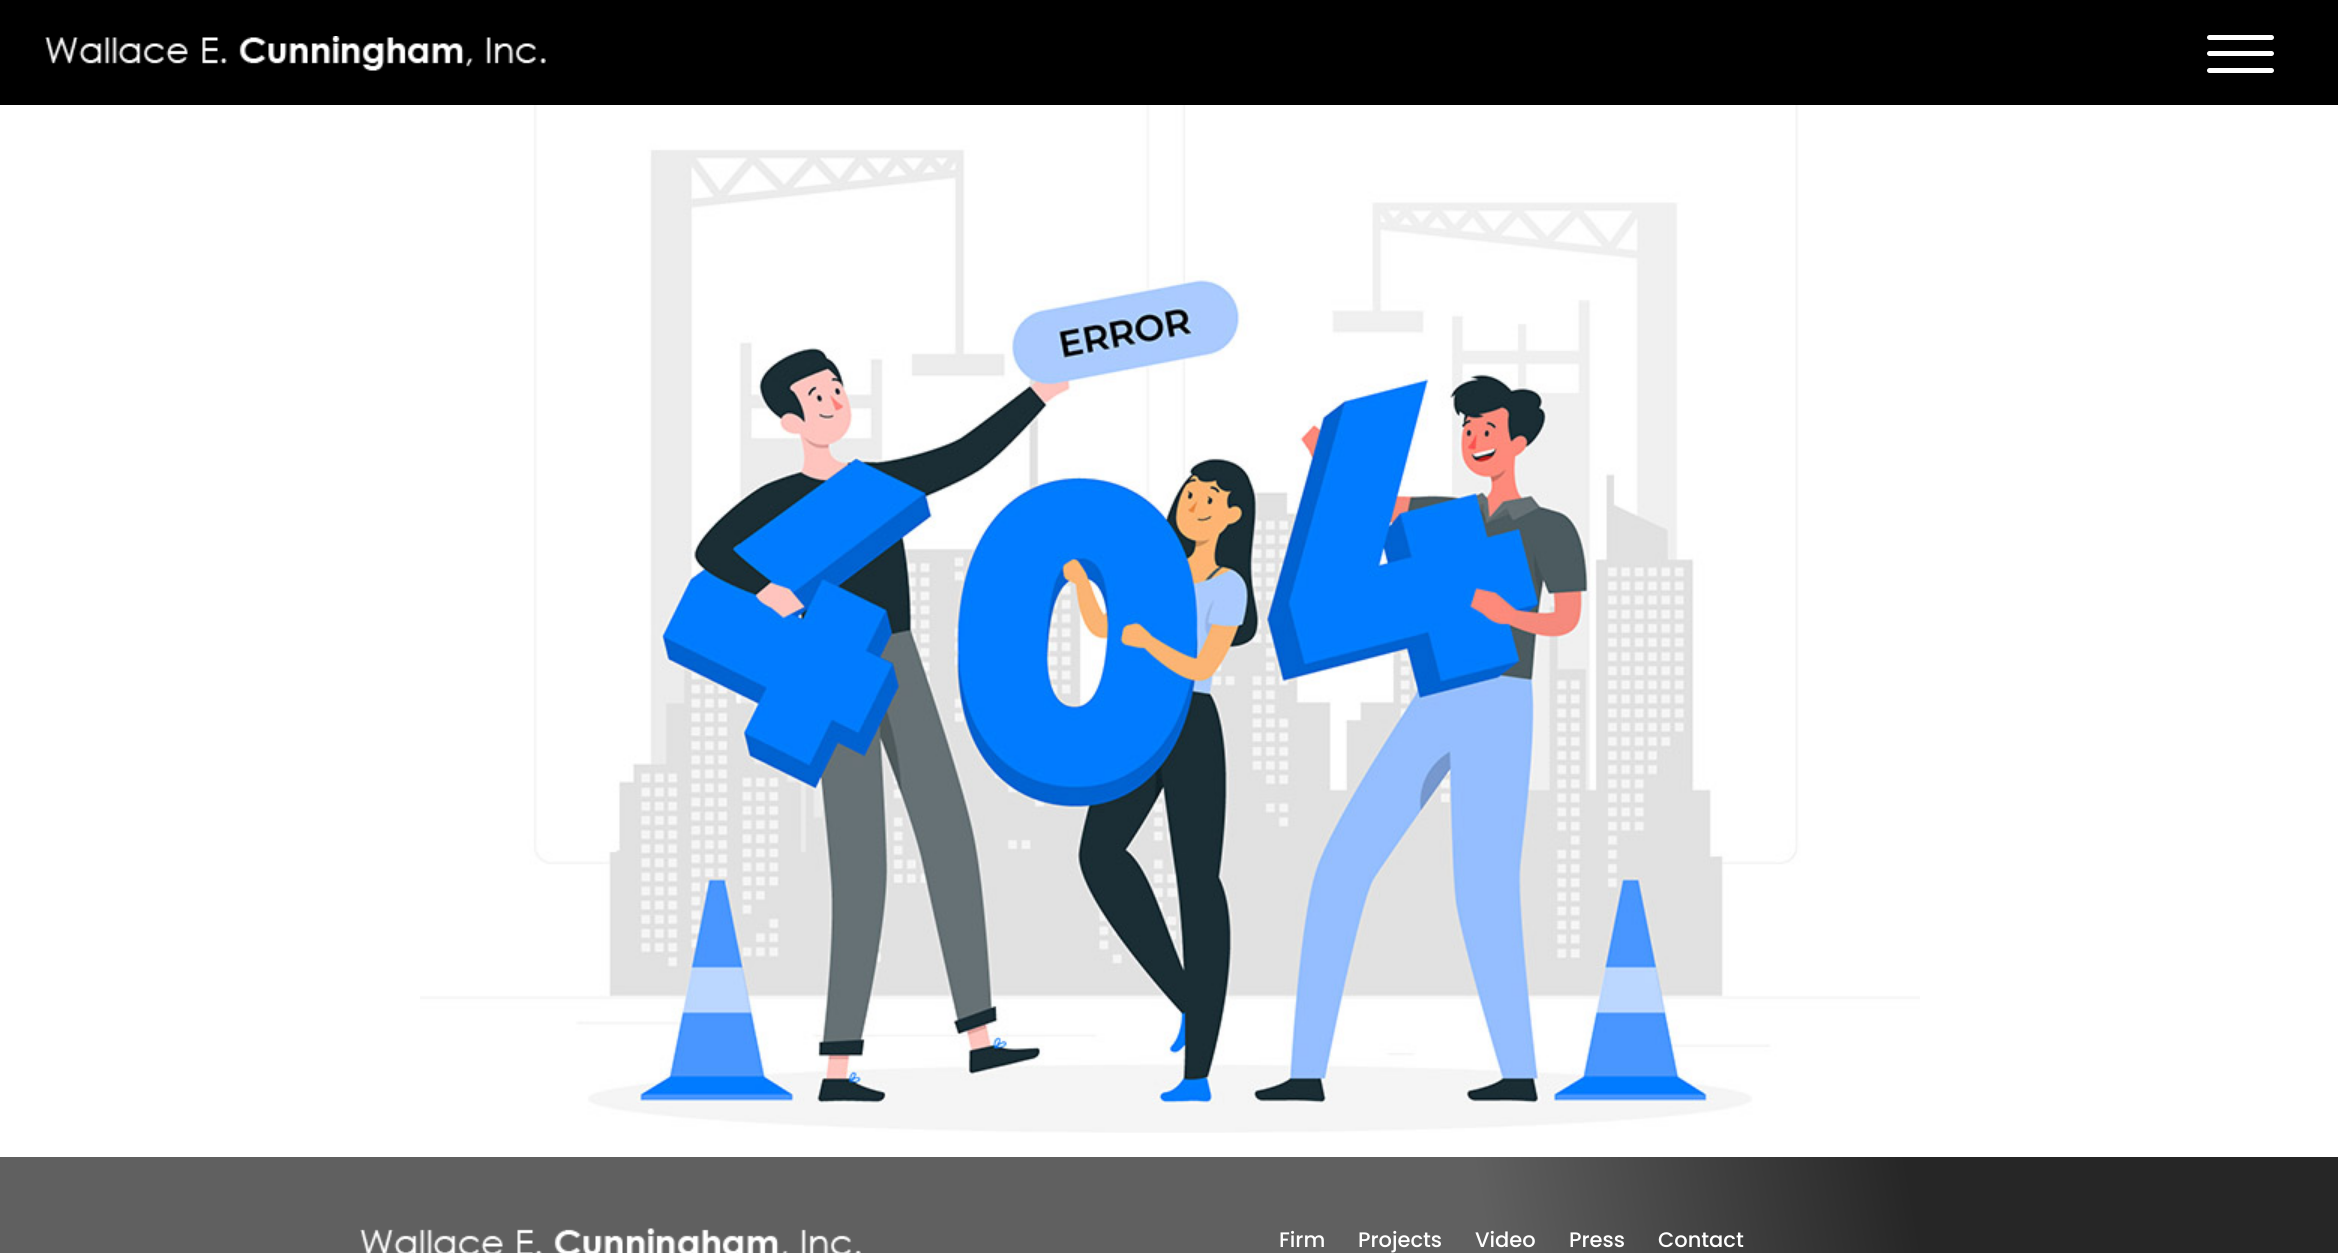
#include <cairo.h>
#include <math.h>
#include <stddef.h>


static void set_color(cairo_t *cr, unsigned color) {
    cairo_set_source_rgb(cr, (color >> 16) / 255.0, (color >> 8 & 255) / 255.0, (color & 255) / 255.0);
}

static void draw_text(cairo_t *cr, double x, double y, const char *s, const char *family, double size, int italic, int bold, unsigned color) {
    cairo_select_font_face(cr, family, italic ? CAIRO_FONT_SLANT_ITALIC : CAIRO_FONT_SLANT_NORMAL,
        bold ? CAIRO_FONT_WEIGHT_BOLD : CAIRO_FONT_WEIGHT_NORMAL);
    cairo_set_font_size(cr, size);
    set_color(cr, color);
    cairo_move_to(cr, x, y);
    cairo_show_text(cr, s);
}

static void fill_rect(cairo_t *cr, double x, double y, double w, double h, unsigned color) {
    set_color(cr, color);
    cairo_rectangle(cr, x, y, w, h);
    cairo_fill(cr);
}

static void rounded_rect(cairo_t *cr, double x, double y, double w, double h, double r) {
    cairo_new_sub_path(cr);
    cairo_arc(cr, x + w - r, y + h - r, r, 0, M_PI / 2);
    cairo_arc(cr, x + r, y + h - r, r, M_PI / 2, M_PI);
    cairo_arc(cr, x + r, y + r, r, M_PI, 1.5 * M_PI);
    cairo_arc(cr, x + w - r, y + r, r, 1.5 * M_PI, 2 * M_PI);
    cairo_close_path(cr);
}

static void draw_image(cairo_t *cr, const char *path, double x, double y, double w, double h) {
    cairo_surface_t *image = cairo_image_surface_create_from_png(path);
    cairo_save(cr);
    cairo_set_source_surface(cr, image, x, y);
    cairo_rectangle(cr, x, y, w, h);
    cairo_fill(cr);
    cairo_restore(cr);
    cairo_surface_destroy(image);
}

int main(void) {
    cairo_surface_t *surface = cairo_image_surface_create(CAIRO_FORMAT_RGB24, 2338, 1253);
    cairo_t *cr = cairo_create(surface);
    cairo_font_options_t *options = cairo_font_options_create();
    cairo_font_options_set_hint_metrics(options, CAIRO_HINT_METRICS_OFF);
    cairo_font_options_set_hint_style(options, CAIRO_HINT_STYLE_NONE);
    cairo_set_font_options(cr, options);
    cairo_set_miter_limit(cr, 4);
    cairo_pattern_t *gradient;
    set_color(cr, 0xFFFFFF);
    cairo_paint(cr);
    fill_rect(cr, 0, 0, 2338, 105, 0x000000);
    draw_image(cr, "assets/img1.png", 45, 36, 501, 35);
    set_color(cr, 0xFFFFFF);
    rounded_rect(cr, 2207, 35, 67, 5, 2.5);
    cairo_fill(cr);
    rounded_rect(cr, 2207, 51, 67, 5, 2.5);
    cairo_fill(cr);
    rounded_rect(cr, 2207, 68, 67, 5, 2.5);
    cairo_fill(cr);
    draw_image(cr, "assets/img2.png", 420, 105, 1500, 1028);
    gradient = cairo_pattern_create_linear(3.4, 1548, 2335, 1137);
    cairo_pattern_add_color_stop_rgba(gradient, 0.64, 0.376, 0.376, 0.376, 1);
    cairo_pattern_add_color_stop_rgba(gradient, 0.82, 0.149, 0.149, 0.149, 1);
    cairo_set_source(cr, gradient);
    cairo_pattern_destroy(gradient);
    cairo_rectangle(cr, 0, 1157, 2338, 96);
    cairo_fill(cr);
    draw_image(cr, "assets/img3.png", 360, 1228, 501, 25);
    draw_text(cr, 1279, 1247, "Firm", "Poppins Medium", 21, 0, 0, 0xFFFFFF);
    draw_text(cr, 1358, 1247, "Projects", "Poppins Medium", 21, 0, 0, 0xFFFFFF);
    draw_text(cr, 1475, 1247, "Video", "Poppins Medium", 21, 0, 0, 0xFFFFFF);
    draw_text(cr, 1569, 1247, "Press", "Poppins Medium", 21, 0, 0, 0xFFFFFF);
    draw_text(cr, 1658, 1247, "Contact", "Poppins Medium", 21, 0, 0, 0xFFFFFF);
    cairo_surface_write_to_png(surface, "output.png");
    cairo_font_options_destroy(options);
    cairo_destroy(cr);
    cairo_surface_destroy(surface);
    return 0;
}
